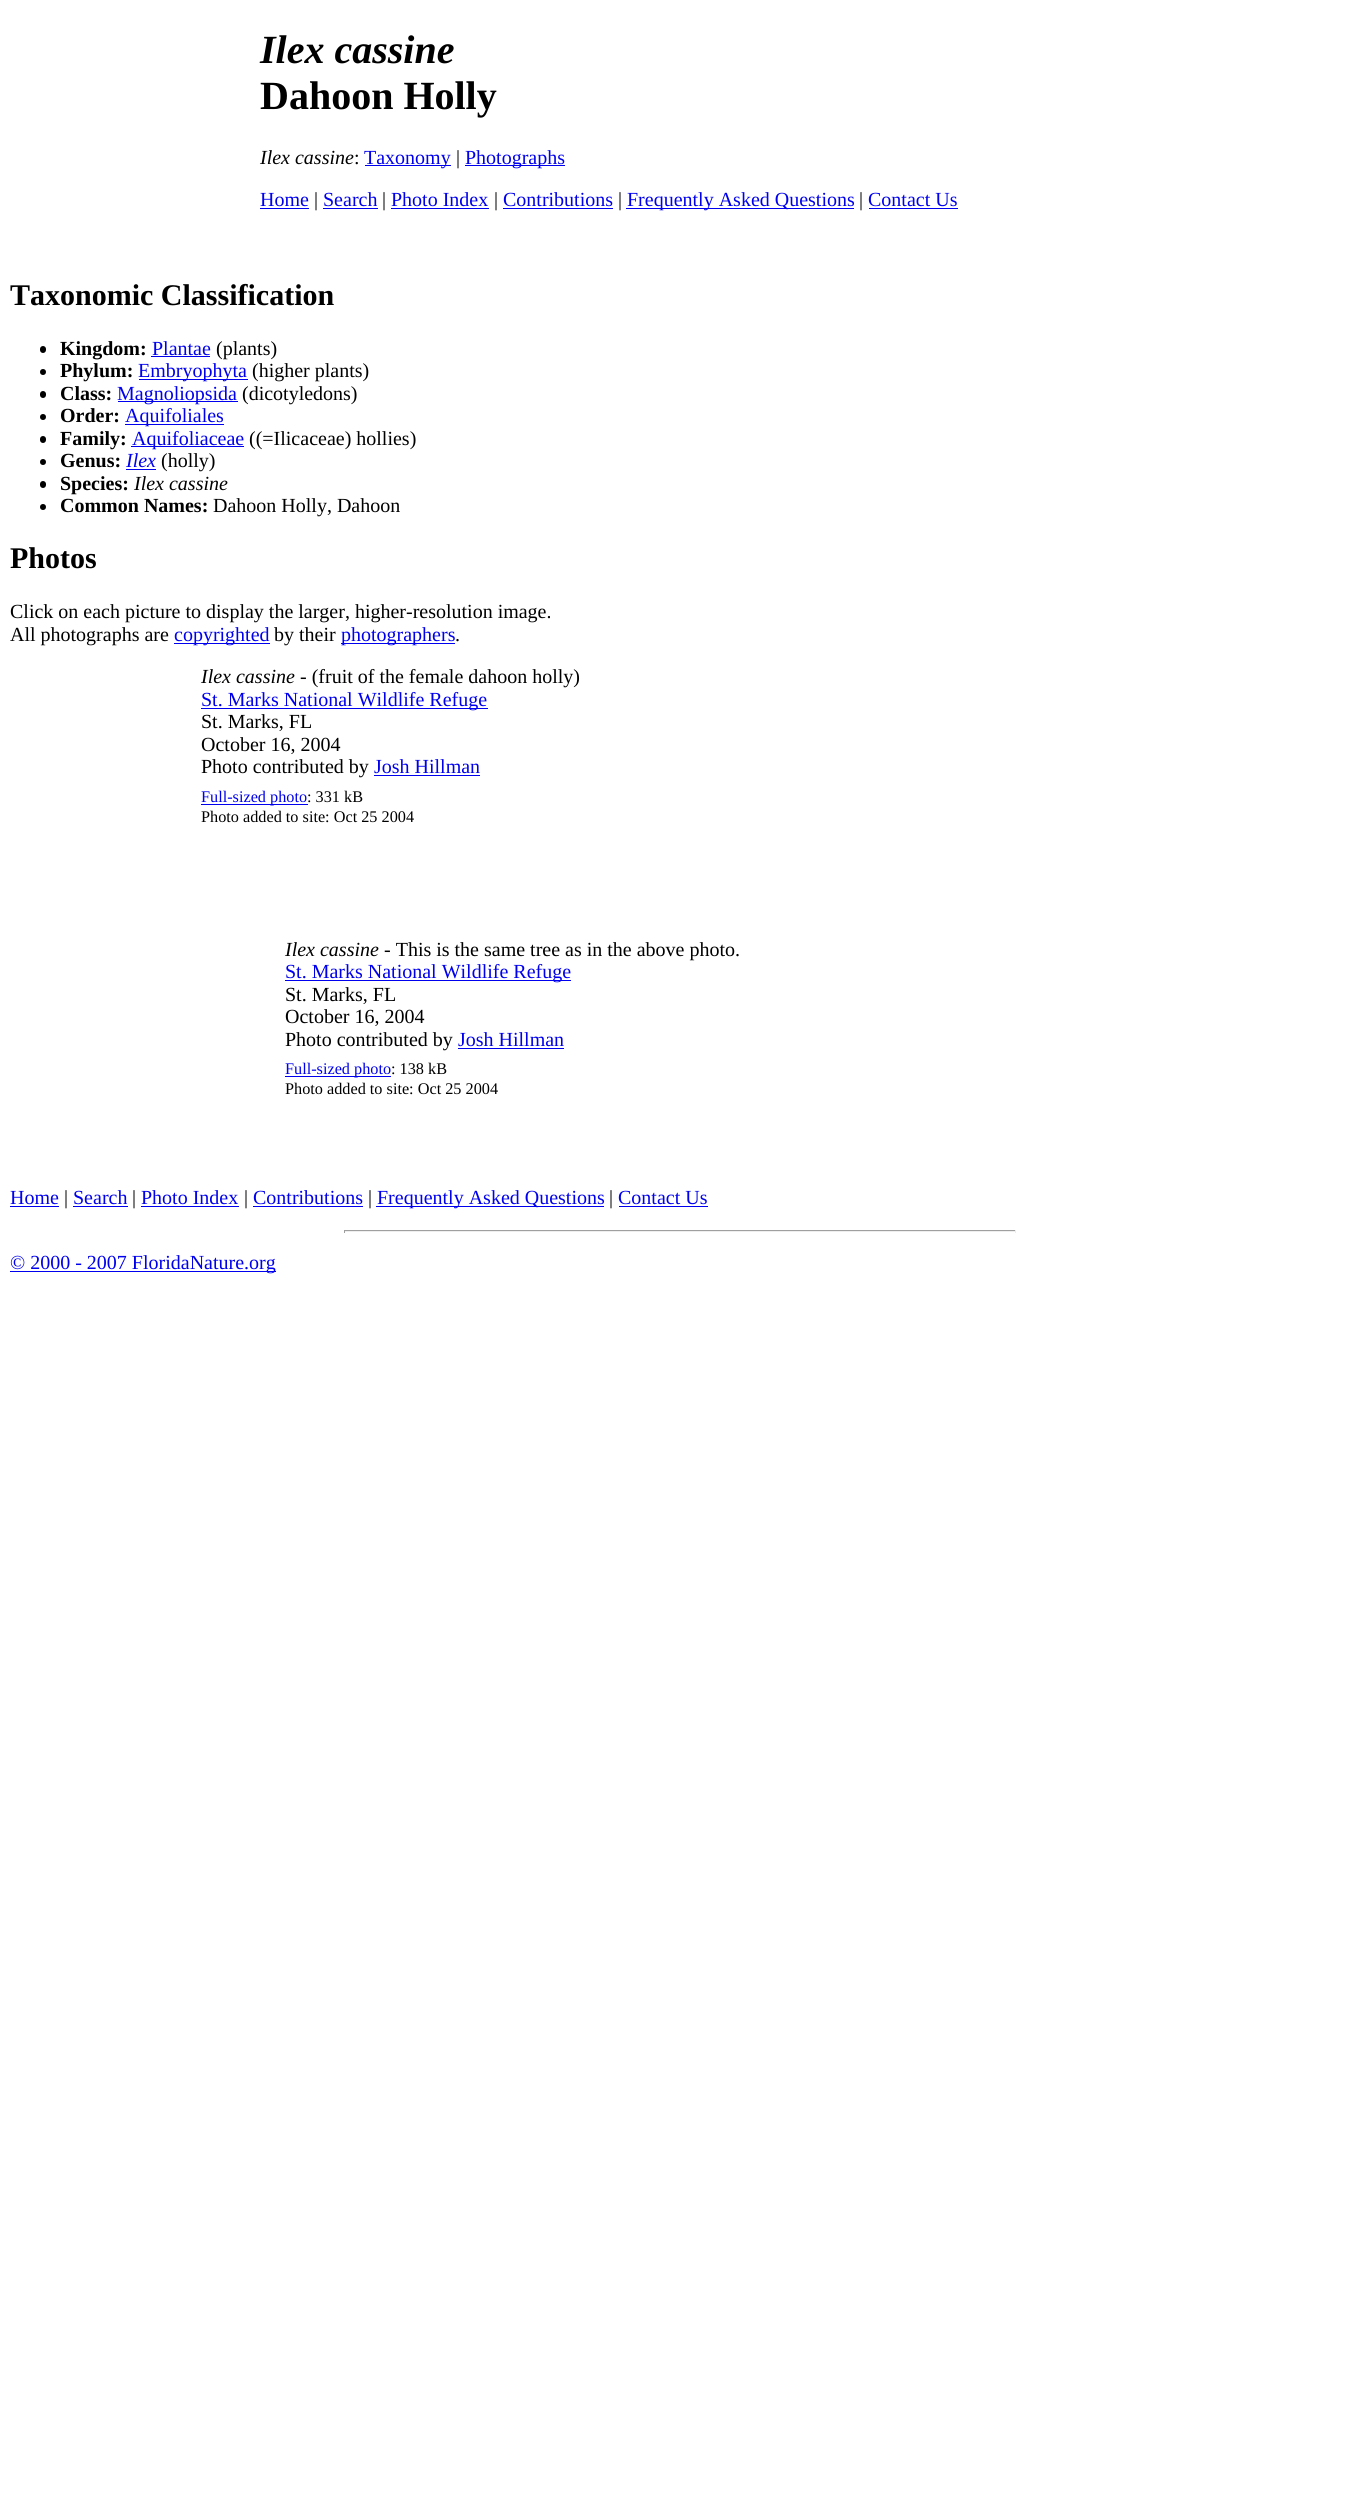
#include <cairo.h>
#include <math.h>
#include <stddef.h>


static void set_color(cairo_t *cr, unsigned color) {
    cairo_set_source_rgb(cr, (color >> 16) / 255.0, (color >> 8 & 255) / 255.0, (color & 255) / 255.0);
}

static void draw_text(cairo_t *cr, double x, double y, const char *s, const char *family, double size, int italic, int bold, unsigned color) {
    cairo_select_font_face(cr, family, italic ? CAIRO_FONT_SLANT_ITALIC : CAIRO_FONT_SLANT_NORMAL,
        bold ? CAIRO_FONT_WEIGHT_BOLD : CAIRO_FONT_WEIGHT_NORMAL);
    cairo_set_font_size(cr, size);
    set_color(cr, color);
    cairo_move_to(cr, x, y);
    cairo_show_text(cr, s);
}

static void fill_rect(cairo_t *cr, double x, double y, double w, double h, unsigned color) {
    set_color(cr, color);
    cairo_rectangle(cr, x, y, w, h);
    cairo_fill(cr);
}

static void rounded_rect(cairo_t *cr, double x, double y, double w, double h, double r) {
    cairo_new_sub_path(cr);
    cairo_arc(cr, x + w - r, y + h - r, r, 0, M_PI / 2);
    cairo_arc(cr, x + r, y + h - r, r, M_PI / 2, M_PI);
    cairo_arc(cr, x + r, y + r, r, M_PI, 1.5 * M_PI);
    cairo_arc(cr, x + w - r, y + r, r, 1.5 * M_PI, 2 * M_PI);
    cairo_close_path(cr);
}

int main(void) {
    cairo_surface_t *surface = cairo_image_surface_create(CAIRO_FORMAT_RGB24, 1359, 2518);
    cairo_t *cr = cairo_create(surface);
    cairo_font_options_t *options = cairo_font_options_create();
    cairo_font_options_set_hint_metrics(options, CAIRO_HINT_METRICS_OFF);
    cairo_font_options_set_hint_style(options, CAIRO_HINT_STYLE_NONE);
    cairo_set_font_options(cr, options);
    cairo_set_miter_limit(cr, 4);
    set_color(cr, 0xFFFFFF);
    cairo_paint(cr);
    draw_text(cr, 260, 63, "Ilex cassine", "Liberation Serif", 40, 1, 1, 0x000000);
    draw_text(cr, 260, 109, "Dahoon Holly", "Liberation Serif", 40, 0, 1, 0x000000);
    draw_text(cr, 260, 164, "Ilex cassine", "Liberation Serif", 20, 1, 0, 0x000000);
    draw_text(cr, 354, 164, ":", "Liberation Serif", 20, 0, 0, 0x000000);
    fill_rect(cr, 365, 165, 86, 1, 0x0000EE);
    draw_text(cr, 364, 164, "Taxonomy", "Liberation Serif", 20, 0, 0, 0x0000EE);
    draw_text(cr, 456, 164, "|", "Liberation Serif", 20, 0, 0, 0x000000);
    fill_rect(cr, 465, 165, 100, 1, 0x0000EE);
    draw_text(cr, 465, 164, "Photographs", "Liberation Serif", 20, 0, 0, 0x0000EE);
    draw_text(cr, 260, 206, "Home", "Liberation Serif", 20, 0, 0, 0x0000EE);
    fill_rect(cr, 260, 208, 49, 1, 0x0000EE);
    draw_text(cr, 314, 206, "|", "Liberation Serif", 20, 0, 0, 0x000000);
    draw_text(cr, 323, 206, "Search", "Liberation Serif", 20, 0, 0, 0x0000EE);
    fill_rect(cr, 323, 208, 55, 1, 0x0000EE);
    draw_text(cr, 382, 206, "|", "Liberation Serif", 20, 0, 0, 0x000000);
    draw_text(cr, 391, 206, "Photo Index", "Liberation Serif", 20, 0, 0, 0x0000EE);
    fill_rect(cr, 391, 208, 98, 1, 0x0000EE);
    draw_text(cr, 494, 206, "|", "Liberation Serif", 20, 0, 0, 0x000000);
    draw_text(cr, 503, 206, "Contributions", "Liberation Serif", 20, 0, 0, 0x0000EE);
    fill_rect(cr, 503, 208, 110, 1, 0x0000EE);
    draw_text(cr, 618, 206, "|", "Liberation Serif", 20, 0, 0, 0x000000);
    fill_rect(cr, 626, 208, 228, 1, 0x0000EE);
    draw_text(cr, 627, 206, "Frequently Asked Questions", "Liberation Serif", 20, 0, 0, 0x0000EE);
    draw_text(cr, 859, 206, "|", "Liberation Serif", 20, 0, 0, 0x000000);
    draw_text(cr, 868, 206, "Contact Us", "Liberation Serif", 20, 0, 0, 0x0000EE);
    fill_rect(cr, 869, 208, 89, 1, 0x0000EE);
    draw_text(cr, 10, 305, "Taxonomic Classification", "Liberation Serif", 30, 0, 1, 0x000000);
    rounded_rect(cr, 40, 346, 6, 7, 3);
    cairo_fill(cr);
    draw_text(cr, 60, 355, "Kingdom:", "Liberation Serif", 20, 0, 1, 0x000000);
    draw_text(cr, 152, 355, "Plantae", "Liberation Serif", 20, 0, 0, 0x0000EE);
    fill_rect(cr, 151, 356, 59, 1, 0x0000EE);
    draw_text(cr, 216, 355, "(plants)", "Liberation Serif", 20, 0, 0, 0x000000);
    cairo_new_path(cr);
    cairo_arc(cr, 43, 372, 3, 0, 2 * M_PI);
    cairo_fill(cr);
    draw_text(cr, 60, 377, "Phylum:", "Liberation Serif", 20, 0, 1, 0x000000);
    fill_rect(cr, 139, 379, 109, 1, 0x0000EE);
    draw_text(cr, 138, 377, "Embryophyta", "Liberation Serif", 20, 0, 0, 0x0000EE);
    draw_text(cr, 252, 377, "(higher plants)", "Liberation Serif", 20, 0, 0, 0x000000);
    rounded_rect(cr, 40, 391, 6, 7, 3);
    cairo_fill(cr);
    draw_text(cr, 60, 400, "Class:", "Liberation Serif", 20, 0, 1, 0x000000);
    fill_rect(cr, 118, 401, 120, 1, 0x0000EE);
    draw_text(cr, 117, 400, "Magnoliopsida", "Liberation Serif", 20, 0, 0, 0x0000EE);
    draw_text(cr, 242, 400, "(dicotyledons)", "Liberation Serif", 20, 0, 0, 0x000000);
    cairo_new_path(cr);
    cairo_arc(cr, 43, 417, 3, 0, 2 * M_PI);
    cairo_fill(cr);
    draw_text(cr, 60, 422, "Order:", "Liberation Serif", 20, 0, 1, 0x000000);
    fill_rect(cr, 125, 424, 99, 1, 0x0000EE);
    draw_text(cr, 125, 422, "Aquifoliales", "Liberation Serif", 20, 0, 0, 0x0000EE);
    set_color(cr, 0x000000);
    rounded_rect(cr, 40, 436, 6, 7, 3);
    cairo_fill(cr);
    draw_text(cr, 60, 445, "Family:", "Liberation Serif", 20, 0, 1, 0x000000);
    fill_rect(cr, 131, 446, 113, 1, 0x0000EE);
    draw_text(cr, 132, 445, "Aquifoliaceae", "Liberation Serif", 20, 0, 0, 0x0000EE);
    draw_text(cr, 249, 445, "((=Ilicaceae) hollies)", "Liberation Serif", 20, 0, 0, 0x000000);
    cairo_new_path(cr);
    cairo_arc(cr, 43, 462, 3, 0, 2 * M_PI);
    cairo_fill(cr);
    draw_text(cr, 60, 467, "Genus:", "Liberation Serif", 20, 0, 1, 0x000000);
    draw_text(cr, 126, 467, "Ilex", "Liberation Serif", 20, 1, 0, 0x0000EE);
    fill_rect(cr, 126, 469, 30, 1, 0x0000EE);
    draw_text(cr, 161, 467, "(holly)", "Liberation Serif", 20, 0, 0, 0x000000);
    rounded_rect(cr, 40, 481, 6, 7, 3);
    cairo_fill(cr);
    draw_text(cr, 60, 490, "Species:", "Liberation Serif", 20, 0, 1, 0x000000);
    draw_text(cr, 134, 490, "Ilex cassine", "Liberation Serif", 20, 1, 0, 0x000000);
    cairo_new_path(cr);
    cairo_arc(cr, 43, 507, 3, 0, 2 * M_PI);
    cairo_fill(cr);
    draw_text(cr, 60, 512, "Common Names:", "Liberation Serif", 20, 0, 1, 0x000000);
    draw_text(cr, 213, 512, "Dahoon Holly, Dahoon", "Liberation Serif", 20, 0, 0, 0x000000);
    draw_text(cr, 10, 568, "Photos", "Liberation Serif", 30, 0, 1, 0x000000);
    draw_text(cr, 10, 618, "Click on each picture to display the larger, higher-resolution image.", "Liberation Serif", 20, 0, 0, 0x000000);
    draw_text(cr, 10, 641, "All photographs are", "Liberation Serif", 20, 0, 0, 0x000000);
    fill_rect(cr, 174, 643, 96, 1, 0x0000EE);
    draw_text(cr, 174, 641, "copyrighted", "Liberation Serif", 20, 0, 0, 0x0000EE);
    draw_text(cr, 274, 641, "by their", "Liberation Serif", 20, 0, 0, 0x000000);
    fill_rect(cr, 341, 643, 114, 1, 0x0000EE);
    draw_text(cr, 341, 641, "photographers", "Liberation Serif", 20, 0, 0, 0x0000EE);
    draw_text(cr, 455, 641, ".", "Liberation Serif", 20, 0, 0, 0x000000);
    draw_text(cr, 201, 683, "Ilex cassine", "Liberation Serif", 20, 1, 0, 0x000000);
    draw_text(cr, 300, 683, "- (fruit of the female dahoon holly)", "Liberation Serif", 20, 0, 0, 0x000000);
    fill_rect(cr, 201, 708, 287, 1, 0x0000EE);
    draw_text(cr, 201, 706, "St. Marks National Wildlife Refuge", "Liberation Serif", 20, 0, 0, 0x0000EE);
    draw_text(cr, 201, 728, "St. Marks, FL", "Liberation Serif", 20, 0, 0, 0x000000);
    draw_text(cr, 201, 751, "October 16, 2004", "Liberation Serif", 20, 0, 0, 0x000000);
    draw_text(cr, 201, 773, "Photo contributed by", "Liberation Serif", 20, 0, 0, 0x000000);
    draw_text(cr, 374, 773, "Josh Hillman", "Liberation Serif", 20, 0, 0, 0x0000EE);
    fill_rect(cr, 374, 775, 106, 1, 0x0000EE);
    fill_rect(cr, 201, 804, 107, 1, 0x0000EE);
    draw_text(cr, 201, 802, "Full-sized photo", "Liberation Serif", 16.25, 0, 0, 0x0000EE);
    draw_text(cr, 307, 802, ": 331 kB", "Liberation Serif", 16.25, 0, 0, 0x000000);
    draw_text(cr, 201, 822, "Photo added to site: Oct 25 2004", "Liberation Serif", 16.25, 0, 0, 0x000000);
    draw_text(cr, 285, 956, "Ilex cassine", "Liberation Serif", 20, 1, 0, 0x000000);
    draw_text(cr, 384, 956, "- This is the same tree as in the above photo.", "Liberation Serif", 20, 0, 0, 0x000000);
    fill_rect(cr, 285, 980, 286, 1, 0x0000EE);
    draw_text(cr, 285, 978, "St. Marks National Wildlife Refuge", "Liberation Serif", 20, 0, 0, 0x0000EE);
    draw_text(cr, 285, 1001, "St. Marks, FL", "Liberation Serif", 20, 0, 0, 0x000000);
    draw_text(cr, 285, 1023, "October 16, 2004", "Liberation Serif", 20, 0, 0, 0x000000);
    draw_text(cr, 285, 1046, "Photo contributed by", "Liberation Serif", 20, 0, 0, 0x000000);
    draw_text(cr, 458, 1046, "Josh Hillman", "Liberation Serif", 20, 0, 0, 0x0000EE);
    fill_rect(cr, 458, 1048, 106, 1, 0x0000EE);
    fill_rect(cr, 285, 1076, 106, 1, 0x0000EE);
    draw_text(cr, 285, 1074, "Full-sized photo", "Liberation Serif", 16.25, 0, 0, 0x0000EE);
    draw_text(cr, 391, 1074, ": 138 kB", "Liberation Serif", 16.25, 0, 0, 0x000000);
    draw_text(cr, 285, 1094, "Photo added to site: Oct 25 2004", "Liberation Serif", 16.25, 0, 0, 0x000000);
    draw_text(cr, 10, 1204, "Home", "Liberation Serif", 20, 0, 0, 0x0000EE);
    fill_rect(cr, 10, 1206, 49, 1, 0x0000EE);
    draw_text(cr, 64, 1204, "|", "Liberation Serif", 20, 0, 0, 0x000000);
    draw_text(cr, 73, 1204, "Search", "Liberation Serif", 20, 0, 0, 0x0000EE);
    fill_rect(cr, 73, 1206, 55, 1, 0x0000EE);
    draw_text(cr, 132, 1204, "|", "Liberation Serif", 20, 0, 0, 0x000000);
    draw_text(cr, 141, 1204, "Photo Index", "Liberation Serif", 20, 0, 0, 0x0000EE);
    fill_rect(cr, 141, 1206, 98, 1, 0x0000EE);
    draw_text(cr, 244, 1204, "|", "Liberation Serif", 20, 0, 0, 0x000000);
    draw_text(cr, 253, 1204, "Contributions", "Liberation Serif", 20, 0, 0, 0x0000EE);
    fill_rect(cr, 253, 1206, 110, 1, 0x0000EE);
    draw_text(cr, 368, 1204, "|", "Liberation Serif", 20, 0, 0, 0x000000);
    fill_rect(cr, 376, 1206, 228, 1, 0x0000EE);
    draw_text(cr, 377, 1204, "Frequently Asked Questions", "Liberation Serif", 20, 0, 0, 0x0000EE);
    draw_text(cr, 609, 1204, "|", "Liberation Serif", 20, 0, 0, 0x000000);
    draw_text(cr, 618, 1204, "Contact Us", "Liberation Serif", 20, 0, 0, 0x0000EE);
    fill_rect(cr, 619, 1206, 89, 1, 0x0000EE);
    fill_rect(cr, 344, 1230, 672, 1, 0x9F9F9F);
    fill_rect(cr, 1015, 1230, 1, 3, 0xEEEEEE);
    fill_rect(cr, 344, 1231, 672, 1, 0xEEEEEE);
    fill_rect(cr, 344, 1230, 1, 3, 0x9F9F9F);
    fill_rect(cr, 10, 1271, 266, 1, 0x0000EE);
    draw_text(cr, 10, 1269, "© 2000 - 2007 FloridaNature.org", "Liberation Serif", 20, 0, 0, 0x0000EE);
    cairo_surface_write_to_png(surface, "output.png");
    cairo_font_options_destroy(options);
    cairo_destroy(cr);
    cairo_surface_destroy(surface);
    return 0;
}
